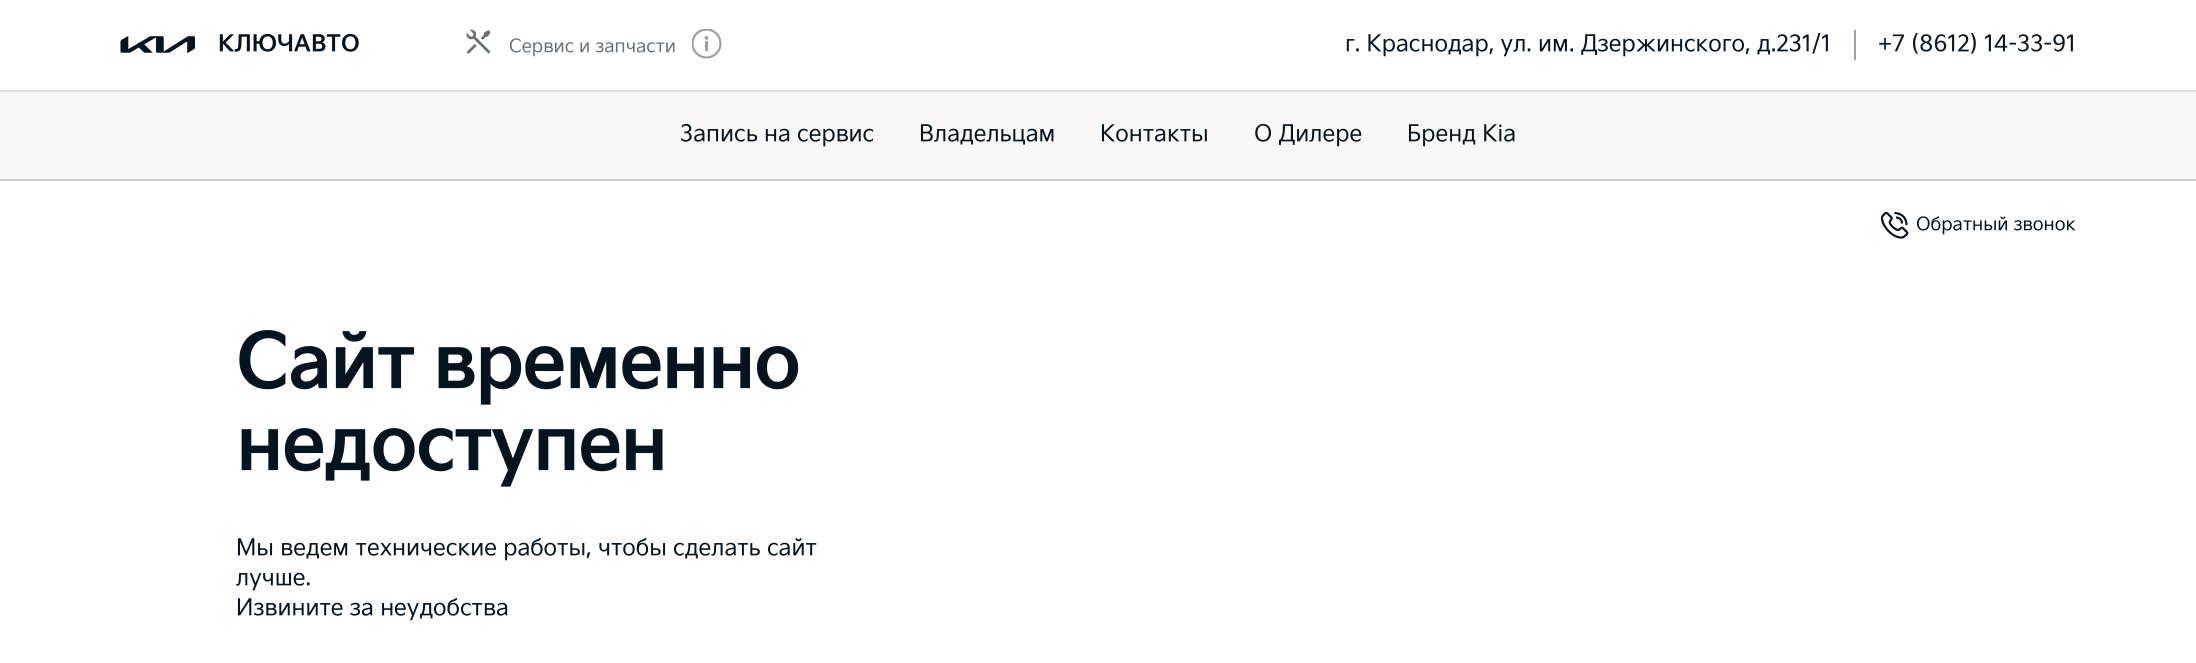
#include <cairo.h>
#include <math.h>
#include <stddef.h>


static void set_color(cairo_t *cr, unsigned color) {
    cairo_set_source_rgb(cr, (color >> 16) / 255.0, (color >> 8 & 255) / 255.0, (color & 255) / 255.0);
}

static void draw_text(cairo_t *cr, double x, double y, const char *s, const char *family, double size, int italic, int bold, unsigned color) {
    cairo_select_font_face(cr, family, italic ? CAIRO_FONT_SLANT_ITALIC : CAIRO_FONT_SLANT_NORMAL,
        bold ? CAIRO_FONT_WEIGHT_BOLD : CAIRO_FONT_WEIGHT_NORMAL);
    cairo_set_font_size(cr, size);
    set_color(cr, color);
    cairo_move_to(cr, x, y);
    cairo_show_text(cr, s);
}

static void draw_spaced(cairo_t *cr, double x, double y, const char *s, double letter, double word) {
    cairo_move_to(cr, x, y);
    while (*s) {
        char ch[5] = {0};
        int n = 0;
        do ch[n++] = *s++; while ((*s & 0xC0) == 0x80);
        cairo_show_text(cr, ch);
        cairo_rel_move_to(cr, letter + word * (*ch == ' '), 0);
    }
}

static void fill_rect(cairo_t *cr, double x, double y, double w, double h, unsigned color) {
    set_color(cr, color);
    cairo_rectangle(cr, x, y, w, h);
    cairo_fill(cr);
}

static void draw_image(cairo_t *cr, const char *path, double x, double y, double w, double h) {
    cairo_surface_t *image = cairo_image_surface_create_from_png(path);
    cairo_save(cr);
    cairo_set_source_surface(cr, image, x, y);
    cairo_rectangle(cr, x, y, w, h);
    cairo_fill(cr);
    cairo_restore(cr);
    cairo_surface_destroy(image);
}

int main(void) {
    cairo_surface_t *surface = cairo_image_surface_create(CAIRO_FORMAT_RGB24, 2196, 663);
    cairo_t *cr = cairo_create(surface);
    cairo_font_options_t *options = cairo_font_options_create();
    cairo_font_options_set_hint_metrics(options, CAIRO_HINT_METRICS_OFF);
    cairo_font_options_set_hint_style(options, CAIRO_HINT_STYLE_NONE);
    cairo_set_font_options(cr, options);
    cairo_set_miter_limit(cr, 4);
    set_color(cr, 0xFFFFFF);
    cairo_paint(cr);
    fill_rect(cr, 0, 90, 2196, 89, 0xF8F8F8);
    cairo_rectangle(cr, 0, 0, 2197, 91);
    cairo_set_source_rgba(cr, 0.02, 0.078, 0.122, 0.1);
    cairo_stroke(cr);
    fill_rect(cr, 0, 0, 2196, 90, 0xFFFFFF);
    draw_image(cr, "assets/img1.png", 120, 36, 75, 17);
    draw_text(cr, 218, 51, "КЛЮЧАВТО", "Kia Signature", 22.5, 0, 1, 0x05141F);
    draw_image(cr, "assets/img2.png", 466, 29, 25, 25);
    draw_text(cr, 509, 52, "Сервис и запчасти", "Kia Signature", 18, 0, 0, 0x697279);
    cairo_save(cr);
    cairo_rectangle(cr, 692, 29, 30, 30);
    cairo_clip(cr);
    cairo_arc(cr, 706.5, 43.5, 14, 0, 2 * M_PI);
    set_color(cr, 0x9BA1A5);
    cairo_set_line_width(cr, 2.2);
    cairo_stroke(cr);
    cairo_restore(cr);
    set_color(cr, 0x9BA1A5);
    cairo_arc(cr, 706.5, 37.9, 1.9, 0, 2 * M_PI);
    cairo_fill(cr);
    fill_rect(cr, 705, 41, 3, 10, 0x9BA1A5);
    draw_text(cr, 1345, 51, "г. Краснодар, ул. им. Дзержинского, д.231/1", "Kia Signature", 22.5, 0, 0, 0x05141F);
    fill_rect(cr, 1854, 30, 2, 30, 0x9BA1A5);
    draw_text(cr, 1878, 51, "+7 (8612) 14-33-91", "Kia Signature", 22.5, 0, 0, 0x05141F);
    draw_text(cr, 680, 141, "Запись на сервис", "Kia Signature", 22.5, 0, 0, 0x05141F);
    draw_text(cr, 919, 141, "Владельцам", "Kia Signature", 22.5, 0, 0, 0x05141F);
    draw_text(cr, 1100, 141, "Контакты", "Kia Signature", 22.5, 0, 0, 0x05141F);
    draw_text(cr, 1254, 141, "О Дилере", "Kia Signature", 22.5, 0, 0, 0x05141F);
    draw_text(cr, 1407, 141, "Бренд Kia", "Kia Signature", 22.5, 0, 0, 0x05141F);
    fill_rect(cr, 0, 179, 2196, 2, 0xCDD0D2);
    draw_image(cr, "assets/img3.png", 1880, 211, 29, 28);
    draw_text(cr, 1916, 230, "Обратный звонок", "Kia Signature", 18, 0, 0, 0x05141F);
    cairo_select_font_face(cr, "Kia Signature", CAIRO_FONT_SLANT_NORMAL, CAIRO_FONT_WEIGHT_BOLD);
    cairo_set_font_size(cr, 75);
    draw_spaced(cr, 236, 387, "Сайт временно", -1.5, 0);
    draw_spaced(cr, 236, 469, "недоступен", -1.5, 0);
    draw_text(cr, 236, 555, "Мы ведем технические работы, чтобы сделать сайт", "Kia Signature", 22.5, 0, 0, 0x05141F);
    draw_text(cr, 236, 585, "лучше.", "Kia Signature", 22.5, 0, 0, 0x05141F);
    draw_text(cr, 236, 615, "Извините за неудобства", "Kia Signature", 22.5, 0, 0, 0x05141F);
    cairo_surface_write_to_png(surface, "output.png");
    cairo_font_options_destroy(options);
    cairo_destroy(cr);
    cairo_surface_destroy(surface);
    return 0;
}
